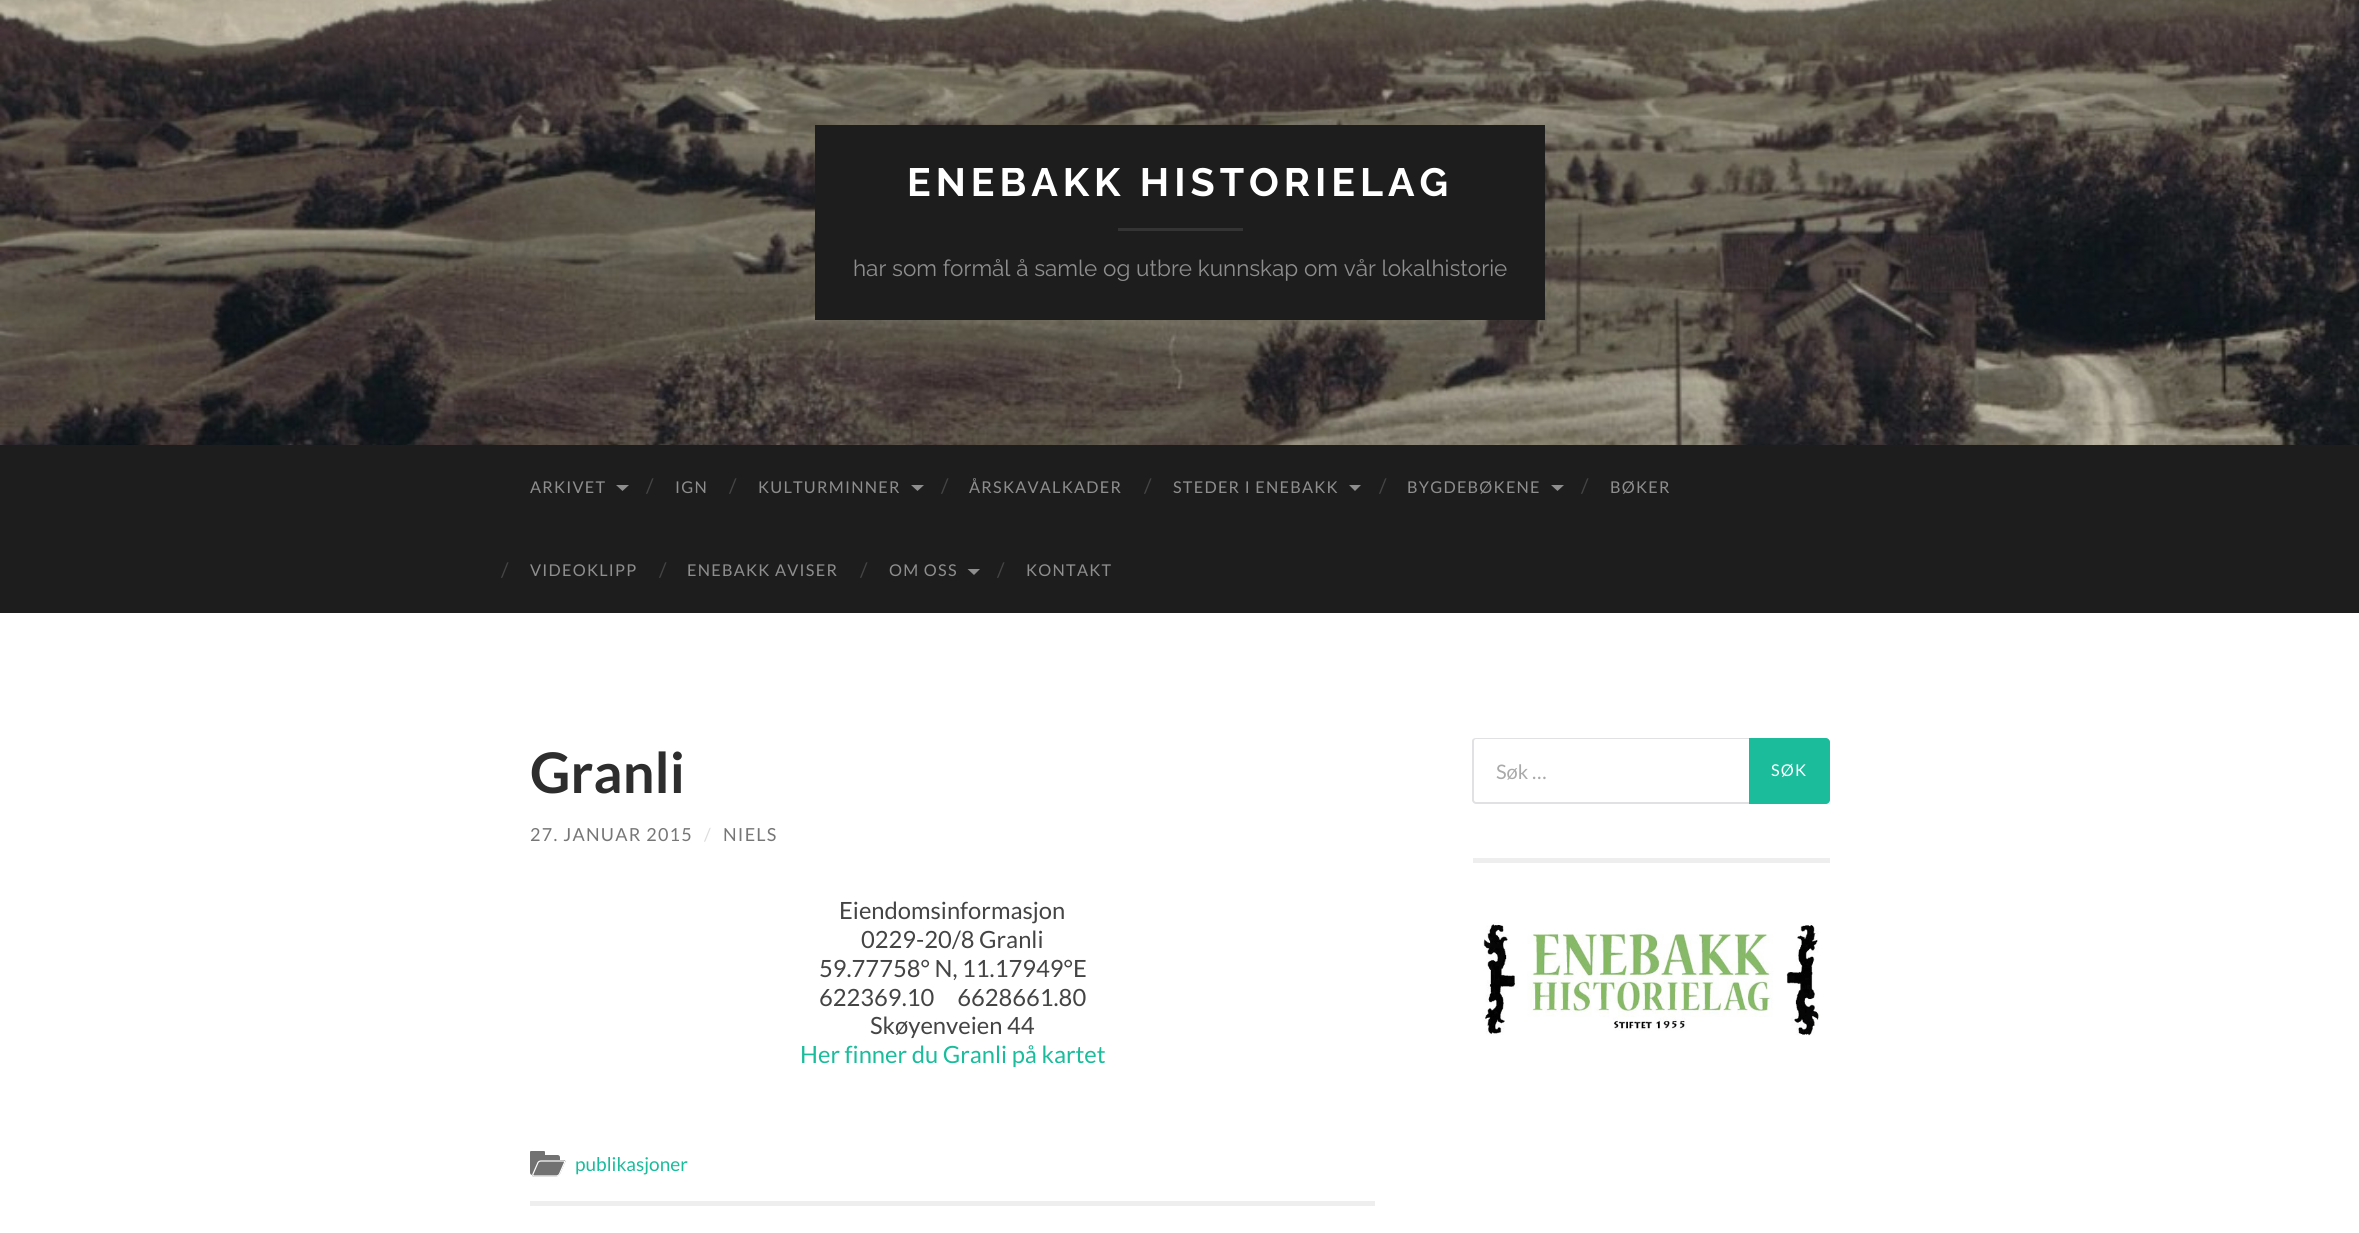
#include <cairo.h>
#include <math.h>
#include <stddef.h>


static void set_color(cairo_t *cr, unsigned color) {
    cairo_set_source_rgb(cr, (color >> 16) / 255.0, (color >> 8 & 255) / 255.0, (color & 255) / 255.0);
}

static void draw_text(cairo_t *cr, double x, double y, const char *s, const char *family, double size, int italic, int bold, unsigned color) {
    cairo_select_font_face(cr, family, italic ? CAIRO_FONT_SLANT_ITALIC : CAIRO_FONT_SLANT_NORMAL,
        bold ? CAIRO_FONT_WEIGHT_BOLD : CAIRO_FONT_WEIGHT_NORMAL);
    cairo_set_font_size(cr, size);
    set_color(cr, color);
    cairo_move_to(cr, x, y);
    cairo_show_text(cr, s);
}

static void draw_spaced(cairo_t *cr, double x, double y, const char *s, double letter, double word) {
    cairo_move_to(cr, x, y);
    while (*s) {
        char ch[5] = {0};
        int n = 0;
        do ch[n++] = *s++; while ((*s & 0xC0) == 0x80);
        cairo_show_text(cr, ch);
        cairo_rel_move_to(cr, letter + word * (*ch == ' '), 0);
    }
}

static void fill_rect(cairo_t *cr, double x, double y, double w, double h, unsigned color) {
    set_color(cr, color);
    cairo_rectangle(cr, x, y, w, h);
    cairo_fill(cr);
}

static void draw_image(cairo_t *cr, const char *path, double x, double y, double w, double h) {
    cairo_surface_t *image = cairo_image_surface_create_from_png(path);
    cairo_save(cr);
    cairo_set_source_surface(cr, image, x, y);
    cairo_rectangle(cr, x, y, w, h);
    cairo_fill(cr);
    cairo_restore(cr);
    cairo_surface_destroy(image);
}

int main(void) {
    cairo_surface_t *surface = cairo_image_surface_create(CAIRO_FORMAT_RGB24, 2359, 1233);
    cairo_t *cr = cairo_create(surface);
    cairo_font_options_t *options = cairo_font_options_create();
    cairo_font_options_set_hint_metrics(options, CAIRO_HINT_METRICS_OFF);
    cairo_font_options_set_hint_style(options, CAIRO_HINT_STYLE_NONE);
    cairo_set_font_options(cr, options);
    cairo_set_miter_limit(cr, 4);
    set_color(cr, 0xFFFFFF);
    cairo_paint(cr);
    draw_image(cr, "assets/img1.png", 0, 0, 2359, 445);
    fill_rect(cr, 815, 125, 730, 195, 0x1D1D1D);
    cairo_select_font_face(cr, "Raleway Thin", CAIRO_FONT_SLANT_NORMAL, CAIRO_FONT_WEIGHT_NORMAL);
    cairo_set_font_size(cr, 39.4);
    set_color(cr, 0xFFFFFF);
    draw_spaced(cr, 907, 196, "ENEBAKK HISTORIELAG", 5, 0);
    fill_rect(cr, 1118, 228, 125, 3, 0x343434);
    draw_text(cr, 853, 276, "har som formål å samle og utbre kunnskap om vår lokalhistorie", "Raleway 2 Thin", 22.5, 0, 0, 0x8E8E8E);
    fill_rect(cr, 0, 445, 2359, 168, 0x1D1D1D);
    cairo_select_font_face(cr, "Lato", CAIRO_FONT_SLANT_NORMAL, CAIRO_FONT_WEIGHT_NORMAL);
    cairo_set_font_size(cr, 16.25);
    set_color(cr, 0x8E8E8E);
    draw_spaced(cr, 530, 493, "ARKIVET", 1.25, 0);
    cairo_new_path(cr);
    cairo_move_to(cr, 616, 485);
    cairo_line_to(cr, 629, 485);
    cairo_line_to(cr, 622.5, 491);
    cairo_close_path(cr);
    cairo_fill(cr);
    draw_text(cr, 646, 493, "/", "Lato", 20, 0, 0, 0x444444);
    cairo_set_font_size(cr, 16.25);
    set_color(cr, 0x8E8E8E);
    draw_spaced(cr, 675, 493, "IGN", 1.25, 0);
    draw_text(cr, 729, 493, "/", "Lato", 20, 0, 0, 0x444444);
    cairo_set_font_size(cr, 16.25);
    set_color(cr, 0x8E8E8E);
    draw_spaced(cr, 758, 493, "KULTURMINNER", 1.25, 0);
    cairo_new_path(cr);
    cairo_move_to(cr, 911, 485);
    cairo_line_to(cr, 924, 485);
    cairo_line_to(cr, 917.5, 491);
    cairo_close_path(cr);
    cairo_fill(cr);
    draw_text(cr, 941, 493, "/", "Lato", 20, 0, 0, 0x444444);
    cairo_set_font_size(cr, 16.25);
    set_color(cr, 0x8E8E8E);
    draw_spaced(cr, 969, 493, "ÅRSKAVALKADER", 1.25, 0);
    draw_text(cr, 1144, 493, "/", "Lato", 20, 0, 0, 0x444444);
    cairo_set_font_size(cr, 16.25);
    set_color(cr, 0x8E8E8E);
    draw_spaced(cr, 1173, 493, "STEDER I ENEBAKK", 1.25, 0);
    cairo_new_path(cr);
    cairo_move_to(cr, 1349, 485);
    cairo_line_to(cr, 1361, 485);
    cairo_line_to(cr, 1355, 491);
    cairo_close_path(cr);
    cairo_fill(cr);
    draw_text(cr, 1379, 493, "/", "Lato", 20, 0, 0, 0x444444);
    cairo_set_font_size(cr, 16.25);
    set_color(cr, 0x8E8E8E);
    draw_spaced(cr, 1407, 493, "BYGDEBØKENE", 1.25, 0);
    cairo_new_path(cr);
    cairo_move_to(cr, 1551, 485);
    cairo_line_to(cr, 1564, 485);
    cairo_line_to(cr, 1557.5, 491);
    cairo_close_path(cr);
    cairo_fill(cr);
    draw_text(cr, 1581, 493, "/", "Lato", 20, 0, 0, 0x444444);
    cairo_set_font_size(cr, 16.25);
    set_color(cr, 0x8E8E8E);
    draw_spaced(cr, 1610, 493, "BØKER", 1.25, 0);
    draw_text(cr, 501, 577, "/", "Lato", 20, 0, 0, 0x444444);
    cairo_set_font_size(cr, 16.25);
    set_color(cr, 0x8E8E8E);
    draw_spaced(cr, 530, 576, "VIDEOKLIPP", 1.25, 0);
    draw_text(cr, 659, 577, "/", "Lato", 20, 0, 0, 0x444444);
    cairo_set_font_size(cr, 16.25);
    set_color(cr, 0x8E8E8E);
    draw_spaced(cr, 687, 576, "ENEBAKK AVISER", 1.25, 0);
    draw_text(cr, 860, 577, "/", "Lato", 20, 0, 0, 0x444444);
    cairo_set_font_size(cr, 16.25);
    set_color(cr, 0x8E8E8E);
    draw_spaced(cr, 889, 576, "OM OSS", 1.25, 0);
    cairo_new_path(cr);
    cairo_move_to(cr, 967.5, 569);
    cairo_line_to(cr, 980, 569);
    cairo_line_to(cr, 974, 575);
    cairo_close_path(cr);
    cairo_fill(cr);
    draw_text(cr, 997, 577, "/", "Lato", 20, 0, 0, 0x444444);
    cairo_set_font_size(cr, 16.25);
    set_color(cr, 0x8E8E8E);
    draw_spaced(cr, 1026, 576, "KONTAKT", 1.25, 0);
    draw_text(cr, 530, 793, "Granli", "Lato", 56, 0, 1, 0x2D2D2D);
    cairo_select_font_face(cr, "Lato", CAIRO_FONT_SLANT_NORMAL, CAIRO_FONT_WEIGHT_NORMAL);
    cairo_set_font_size(cr, 18);
    set_color(cr, 0x767676);
    draw_spaced(cr, 530, 841, "27. JANUAR 2015", 1.25, 0);
    set_color(cr, 0xDDDDDD);
    draw_spaced(cr, 704, 841, "/", 1.25, 0);
    set_color(cr, 0x767676);
    draw_spaced(cr, 723, 841, "NIELS", 1.25, 0);
    draw_text(cr, 839, 919, "Eiendomsinformasjon", "Lato", 23.75, 0, 0, 0x444444);
    draw_text(cr, 861, 948, "0229-20/8 Granli", "Lato", 23.75, 0, 0, 0x444444);
    draw_text(cr, 819, 977, "59.77758° N, 11.17949°E", "Lato", 23.75, 0, 0, 0x444444);
    draw_text(cr, 819, 1006, "622369.10     6628661.80", "Lato", 23.75, 0, 0, 0x444444);
    draw_text(cr, 870, 1034, "Skøyenveien 44", "Lato", 23.75, 0, 0, 0x444444);
    draw_text(cr, 800, 1063, "Her finner du Granli på kartet", "Lato", 23.75, 0, 0, 0x1ABC9C);
    set_color(cr, 0x727272);
    cairo_new_path(cr);
    cairo_move_to(cr, 530, 1155);
    cairo_line_to(cr, 557.5, 1155);
    cairo_curve_to(cr, 559, 1155, 560, 1156, 560, 1157.5);
    cairo_line_to(cr, 560, 1172.5);
    cairo_curve_to(cr, 560, 1174, 559, 1175, 557.5, 1175);
    cairo_line_to(cr, 532.5, 1175);
    cairo_curve_to(cr, 531, 1175, 530, 1174, 530, 1172.5);
    cairo_close_path(cr);
    cairo_fill(cr);
    cairo_new_path(cr);
    cairo_move_to(cr, 531, 1151);
    cairo_line_to(cr, 544, 1151);
    cairo_curve_to(cr, 544.5, 1151, 545, 1151.5, 545, 1152);
    cairo_line_to(cr, 545, 1155);
    cairo_line_to(cr, 530, 1155);
    cairo_line_to(cr, 530, 1152);
    cairo_curve_to(cr, 530, 1151.5, 530.5, 1151, 531, 1151);
    cairo_close_path(cr);
    cairo_fill(cr);
    cairo_new_path(cr);
    cairo_move_to(cr, 541.5, 1160);
    cairo_line_to(cr, 564, 1160);
    cairo_curve_to(cr, 565, 1160, 566, 1161.5, 565, 1162.5);
    cairo_line_to(cr, 560, 1174);
    cairo_curve_to(cr, 559, 1175.5, 557.5, 1176.5, 556, 1176.5);
    cairo_line_to(cr, 533.5, 1176.5);
    cairo_curve_to(cr, 532.5, 1176.5, 531.5, 1175.5, 532.5, 1174);
    cairo_line_to(cr, 537.5, 1162.5);
    cairo_curve_to(cr, 538.5, 1161.5, 540, 1160, 541.5, 1160);
    cairo_close_path(cr);
    cairo_fill(cr);
    cairo_new_path(cr);
    cairo_move_to(cr, 541, 1161);
    cairo_line_to(cr, 563.5, 1161);
    cairo_curve_to(cr, 564.5, 1161, 565, 1161.5, 564.5, 1162.5);
    cairo_line_to(cr, 559.5, 1174);
    cairo_curve_to(cr, 559, 1175, 557.5, 1176, 556.5, 1176);
    cairo_line_to(cr, 534, 1176);
    cairo_curve_to(cr, 533, 1176, 532.5, 1175, 533, 1174);
    cairo_line_to(cr, 538, 1162.5);
    cairo_curve_to(cr, 538.5, 1161.5, 540, 1161, 541, 1161);
    cairo_close_path(cr);
    set_color(cr, 0xFFFFFF);
    cairo_set_line_width(cr, 1.2);
    cairo_stroke(cr);
    draw_text(cr, 575, 1171, "publikasjoner", "Lato", 19, 0, 0, 0x1ABC9C);
    fill_rect(cr, 530, 1201, 845, 5, 0xEEEEEE);
    fill_rect(cr, 1473, 858, 357, 5, 0xEEEEEE);
    set_color(cr, 0xE1E1E3);
    cairo_set_fill_rule(cr, CAIRO_FILL_RULE_EVEN_ODD);
    cairo_new_path(cr);
    cairo_move_to(cr, 1476, 738);
    cairo_line_to(cr, 1749, 738);
    cairo_line_to(cr, 1749, 804);
    cairo_line_to(cr, 1476, 804);
    cairo_curve_to(cr, 1474, 804, 1472, 802, 1472, 800);
    cairo_line_to(cr, 1472, 741);
    cairo_curve_to(cr, 1472, 739, 1474, 738, 1476, 738);
    cairo_close_path(cr);
    cairo_move_to(cr, 1476, 739);
    cairo_line_to(cr, 1749, 739);
    cairo_line_to(cr, 1749, 802);
    cairo_line_to(cr, 1476, 802);
    cairo_curve_to(cr, 1475, 802, 1474, 801, 1474, 800);
    cairo_line_to(cr, 1474, 741);
    cairo_curve_to(cr, 1474, 740, 1475, 739, 1476, 739);
    cairo_close_path(cr);
    cairo_fill(cr);
    draw_text(cr, 1496, 779, "Søk …", "Lato", 20, 0, 0, 0xA9A9A9);
    set_color(cr, 0x1ABC9C);
    cairo_new_path(cr);
    cairo_move_to(cr, 1749, 738);
    cairo_line_to(cr, 1826, 738);
    cairo_curve_to(cr, 1828, 738, 1830, 740, 1830, 742);
    cairo_line_to(cr, 1830, 800);
    cairo_curve_to(cr, 1830, 802, 1828, 804, 1826, 804);
    cairo_line_to(cr, 1749, 804);
    cairo_close_path(cr);
    cairo_fill(cr);
    cairo_set_font_size(cr, 16.25);
    set_color(cr, 0xFFFFFF);
    draw_spaced(cr, 1771, 776, "SØK", 1.25, 0);
    draw_image(cr, "assets/img2.png", 1482, 922, 337, 114);
    cairo_surface_write_to_png(surface, "output.png");
    cairo_font_options_destroy(options);
    cairo_destroy(cr);
    cairo_surface_destroy(surface);
    return 0;
}
